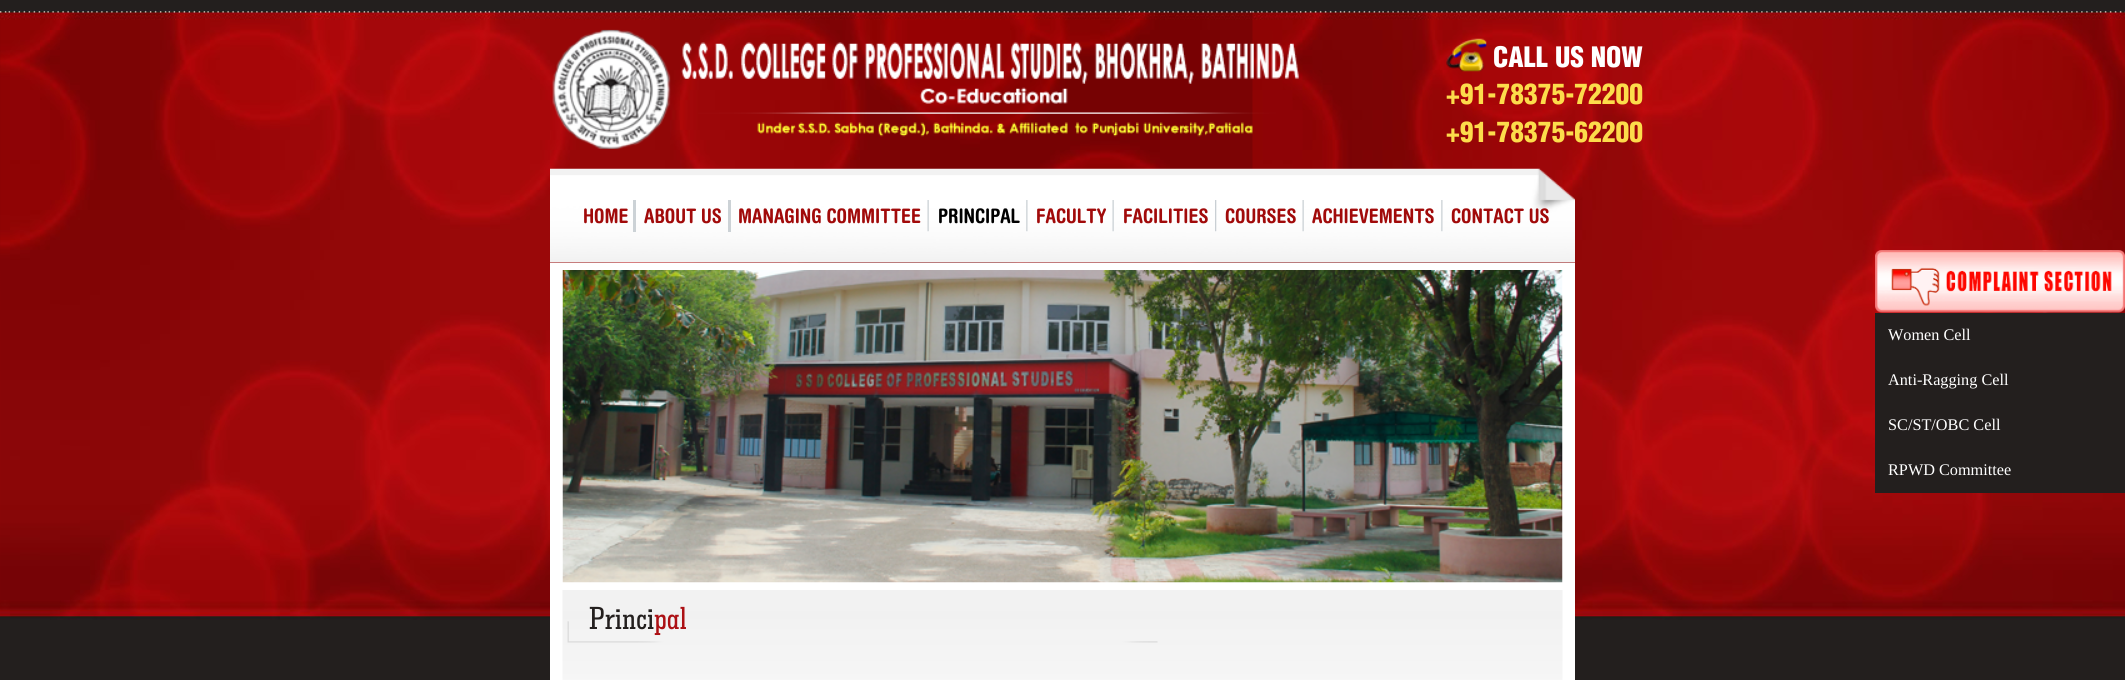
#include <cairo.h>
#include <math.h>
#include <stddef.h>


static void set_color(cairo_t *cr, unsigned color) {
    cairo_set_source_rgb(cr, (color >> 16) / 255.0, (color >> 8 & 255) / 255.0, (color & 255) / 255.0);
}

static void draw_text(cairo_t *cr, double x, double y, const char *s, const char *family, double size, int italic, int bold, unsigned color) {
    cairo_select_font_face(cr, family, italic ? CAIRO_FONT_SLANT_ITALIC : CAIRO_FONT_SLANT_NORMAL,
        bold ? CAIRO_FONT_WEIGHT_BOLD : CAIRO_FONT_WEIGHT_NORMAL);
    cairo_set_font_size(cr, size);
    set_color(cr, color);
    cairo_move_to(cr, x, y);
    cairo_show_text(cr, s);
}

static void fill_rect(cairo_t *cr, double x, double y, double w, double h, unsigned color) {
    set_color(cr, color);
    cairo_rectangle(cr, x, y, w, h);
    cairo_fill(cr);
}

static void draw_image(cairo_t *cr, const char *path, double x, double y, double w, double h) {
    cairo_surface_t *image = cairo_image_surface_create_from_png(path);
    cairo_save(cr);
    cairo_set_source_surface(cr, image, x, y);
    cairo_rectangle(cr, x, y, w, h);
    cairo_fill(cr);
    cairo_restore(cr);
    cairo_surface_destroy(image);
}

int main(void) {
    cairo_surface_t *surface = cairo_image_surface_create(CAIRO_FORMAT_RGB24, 2125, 680);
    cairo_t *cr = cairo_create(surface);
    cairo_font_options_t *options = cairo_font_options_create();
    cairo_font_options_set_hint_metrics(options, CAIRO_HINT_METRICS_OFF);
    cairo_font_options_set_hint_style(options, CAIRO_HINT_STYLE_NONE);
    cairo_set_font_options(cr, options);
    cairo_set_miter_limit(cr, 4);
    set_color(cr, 0x231F1E);
    cairo_paint(cr);
    draw_image(cr, "assets/img1.png", 0, 10, 2125, 610);
    draw_image(cr, "assets/img2.png", 552, 29, 747, 120);
    draw_image(cr, "assets/img3.png", 1446, 38, 41, 34);
    draw_text(cr, 1493, 67, "CALL US NOW", "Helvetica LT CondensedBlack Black", 27.5, 0, 0, 0xFFFFFF);
    draw_text(cr, 1446, 104, "+91-78375-72200", "Helvetica LT CondensedBlack Black", 27.5, 0, 0, 0xFCDC4B);
    draw_text(cr, 1446, 142, "+91-78375-62200", "Helvetica LT CondensedBlack Black", 27.5, 0, 0, 0xFCDC4B);
    draw_image(cr, "assets/img4.png", 550, 168, 1025, 95);
    fill_rect(cr, 633, 200, 3, 32, 0xCCD2D6);
    draw_text(cr, 583, 223, "HOME", "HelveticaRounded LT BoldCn", 20, 0, 1, 0xA10A0A);
    fill_rect(cr, 728, 200, 3, 32, 0xCCD2D6);
    draw_text(cr, 644, 223, "ABOUT US", "HelveticaRounded LT BoldCn", 20, 0, 1, 0xA10A0A);
    draw_image(cr, "assets/img5.png", 927, 200, 2, 32);
    draw_text(cr, 738, 223, "MANAGING COMMITTEE", "HelveticaRounded LT BoldCn", 20, 0, 1, 0xA10A0A);
    draw_image(cr, "assets/img6.png", 1026, 200, 2, 32);
    draw_text(cr, 938, 223, "PRINCIPAL", "HelveticaRounded LT BoldCn", 20, 0, 1, 0x000000);
    draw_image(cr, "assets/img7.png", 1112, 200, 2, 32);
    draw_text(cr, 1036, 223, "FACULTY", "HelveticaRounded LT BoldCn", 20, 0, 1, 0xA10A0A);
    draw_image(cr, "assets/img8.png", 1215, 200, 2, 32);
    draw_text(cr, 1123, 223, "FACILITIES", "HelveticaRounded LT BoldCn", 20, 0, 1, 0xA10A0A);
    draw_image(cr, "assets/img9.png", 1302, 200, 2, 32);
    draw_text(cr, 1225, 223, "COURSES", "HelveticaRounded LT BoldCn", 20, 0, 1, 0xA10A0A);
    draw_image(cr, "assets/img6.png", 1441, 200, 2, 32);
    draw_text(cr, 1312, 223, "ACHIEVEMENTS", "HelveticaRounded LT BoldCn", 20, 0, 1, 0xA10A0A);
    draw_text(cr, 1451, 223, "CONTACT US", "HelveticaRounded LT BoldCn", 20, 0, 1, 0xA10A0A);
    fill_rect(cr, 550, 263, 1025, 417, 0xFFFFFF);
    draw_image(cr, "assets/img10.png", 562, 270, 1001, 313);
    draw_image(cr, "assets/img11.png", 562, 590, 1001, 90);
    draw_image(cr, "assets/img12.png", 567, 621, 591, 22);
    draw_text(cr, 589, 629, "Princi", "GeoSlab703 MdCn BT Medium", 32.5, 0, 0, 0x231F1E);
    draw_text(cr, 654, 629, "pal", "GeoSlab703 MdCn BT Medium", 32.5, 0, 0, 0xAC1014);
    draw_image(cr, "assets/img13.png", 1875, 250, 250, 63);
    fill_rect(cr, 1875, 313, 250, 180, 0x231F1E);
    draw_text(cr, 1888, 340, "Women Cell", "Liberation Serif", 16.25, 0, 0, 0xFFFFFF);
    draw_text(cr, 1888, 385, "Anti-Ragging Cell", "Liberation Serif", 16.25, 0, 0, 0xFFFFFF);
    draw_text(cr, 1888, 430, "SC/ST/OBC Cell", "Liberation Serif", 16.25, 0, 0, 0xFFFFFF);
    draw_text(cr, 1888, 475, "RPWD Committee", "Liberation Serif", 16.25, 0, 0, 0xFFFFFF);
    cairo_surface_write_to_png(surface, "output.png");
    cairo_font_options_destroy(options);
    cairo_destroy(cr);
    cairo_surface_destroy(surface);
    return 0;
}
